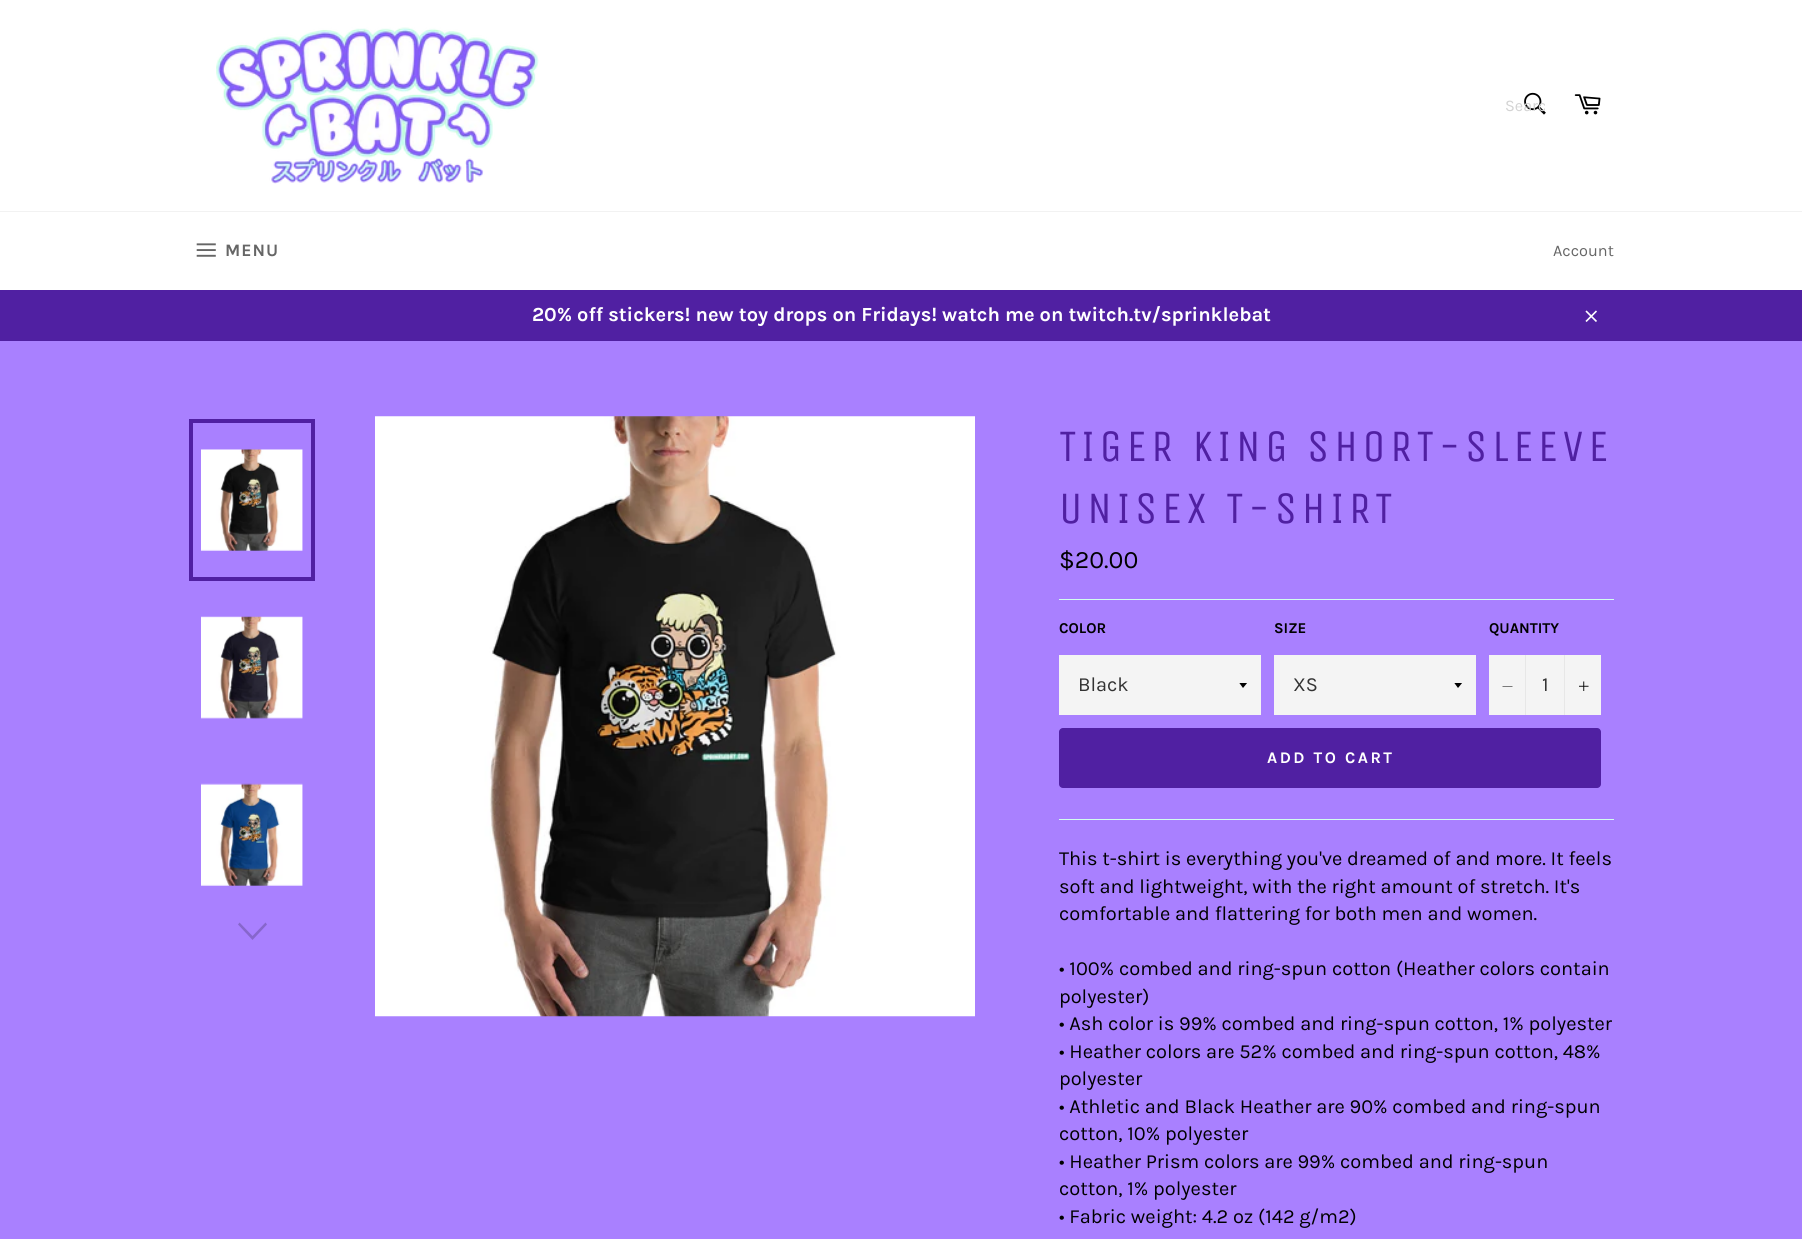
#include <cairo.h>
#include <math.h>
#include <stddef.h>


static void set_color(cairo_t *cr, unsigned color) {
    cairo_set_source_rgb(cr, (color >> 16) / 255.0, (color >> 8 & 255) / 255.0, (color & 255) / 255.0);
}

static void draw_text(cairo_t *cr, double x, double y, const char *s, const char *family, double size, int italic, int bold, unsigned color) {
    cairo_select_font_face(cr, family, italic ? CAIRO_FONT_SLANT_ITALIC : CAIRO_FONT_SLANT_NORMAL,
        bold ? CAIRO_FONT_WEIGHT_BOLD : CAIRO_FONT_WEIGHT_NORMAL);
    cairo_set_font_size(cr, size);
    set_color(cr, color);
    cairo_move_to(cr, x, y);
    cairo_show_text(cr, s);
}

static void draw_spaced(cairo_t *cr, double x, double y, const char *s, double letter, double word) {
    cairo_move_to(cr, x, y);
    while (*s) {
        char ch[5] = {0};
        int n = 0;
        do ch[n++] = *s++; while ((*s & 0xC0) == 0x80);
        cairo_show_text(cr, ch);
        cairo_rel_move_to(cr, letter + word * (*ch == ' '), 0);
    }
}

static void fill_rect(cairo_t *cr, double x, double y, double w, double h, unsigned color) {
    set_color(cr, color);
    cairo_rectangle(cr, x, y, w, h);
    cairo_fill(cr);
}

static void rounded_rect(cairo_t *cr, double x, double y, double w, double h, double r) {
    cairo_new_sub_path(cr);
    cairo_arc(cr, x + w - r, y + h - r, r, 0, M_PI / 2);
    cairo_arc(cr, x + r, y + h - r, r, M_PI / 2, M_PI);
    cairo_arc(cr, x + r, y + r, r, M_PI, 1.5 * M_PI);
    cairo_arc(cr, x + w - r, y + r, r, 1.5 * M_PI, 2 * M_PI);
    cairo_close_path(cr);
}

static void draw_image(cairo_t *cr, const char *path, double x, double y, double w, double h) {
    cairo_surface_t *image = cairo_image_surface_create_from_png(path);
    cairo_save(cr);
    cairo_set_source_surface(cr, image, x, y);
    cairo_rectangle(cr, x, y, w, h);
    cairo_fill(cr);
    cairo_restore(cr);
    cairo_surface_destroy(image);
}

int main(void) {
    cairo_surface_t *surface = cairo_image_surface_create(CAIRO_FORMAT_RGB24, 1802, 1239);
    cairo_t *cr = cairo_create(surface);
    cairo_font_options_t *options = cairo_font_options_create();
    cairo_font_options_set_hint_metrics(options, CAIRO_HINT_METRICS_OFF);
    cairo_font_options_set_hint_style(options, CAIRO_HINT_STYLE_NONE);
    cairo_set_font_options(cr, options);
    cairo_set_miter_limit(cr, 4);
    set_color(cr, 0xFFFFFF);
    cairo_paint(cr);
    draw_image(cr, "assets/img1.png", 216, 27, 323, 157);
    draw_image(cr, "assets/img2.png", 1524, 92, 22, 23);
    cairo_save(cr);
    cairo_rectangle(cr, 1505, 96, 40, 19);
    cairo_clip(cr);
    draw_text(cr, 1505, 111, "Searc", "Karla", 16.25, 0, 0, 0xD3D3D3);
    cairo_restore(cr);
    draw_image(cr, "assets/img3.png", 1574, 94, 27, 21);
    fill_rect(cr, 0, 211, 1802, 1, 0xF2F2F2);
    draw_image(cr, "assets/img4.png", 196, 243, 20, 14);
    cairo_select_font_face(cr, "Karla", CAIRO_FONT_SLANT_NORMAL, CAIRO_FONT_WEIGHT_BOLD);
    cairo_set_font_size(cr, 17.5);
    set_color(cr, 0x666666);
    draw_spaced(cr, 225, 256, "MENU", 1, 0);
    draw_text(cr, 1553, 256, "Account", "Karla", 16.25, 0, 0, 0x666666);
    fill_rect(cr, 0, 290, 1802, 51, 0x5020A2);
    draw_text(cr, 532, 321, "20% off stickers! new toy drops on Fridays! watch me on twitch.tv/sprinklebat", "Karla", 20, 0, 1, 0xFFFFFF);
    draw_image(cr, "assets/img5.png", 1585, 310, 12, 12);
    fill_rect(cr, 0, 341, 1802, 898, 0xA980FF);
    draw_image(cr, "assets/img6.png", 201, 449, 102, 102);
    cairo_rectangle(cr, 191, 421, 122, 158);
    set_color(cr, 0x5020A2);
    cairo_set_line_width(cr, 4);
    cairo_stroke(cr);
    draw_image(cr, "assets/img7.png", 201, 616, 102, 103);
    draw_image(cr, "assets/img8.png", 201, 783, 102, 103);
    set_color(cr, 0x8766CC);
    cairo_new_path(cr);
    cairo_move_to(cr, 265.5, 922.5);
    cairo_line_to(cr, 267, 924.5);
    cairo_line_to(cr, 252.5, 940);
    cairo_line_to(cr, 238, 924.5);
    cairo_line_to(cr, 239.5, 922.5);
    cairo_line_to(cr, 252.5, 936);
    cairo_close_path(cr);
    cairo_fill(cr);
    draw_image(cr, "assets/img9.png", 375, 416, 600, 601);
    cairo_select_font_face(cr, "Unica One", CAIRO_FONT_SLANT_NORMAL, CAIRO_FONT_WEIGHT_NORMAL);
    cairo_set_font_size(cr, 45);
    set_color(cr, 0x5020A2);
    draw_spaced(cr, 1059, 461, "TIGER KING SHORT-SLEEVE", 4.5, 0);
    draw_spaced(cr, 1059, 523, "UNISEX T-SHIRT", 4.5, 0);
    draw_text(cr, 1059, 568, "$20.00", "Karla", 25, 0, 0, 0x000000);
    fill_rect(cr, 1059, 599, 555, 1, 0xD2FFEE);
    draw_text(cr, 1059, 633, "COLOR", "Karla", 15, 0, 1, 0x000000);
    fill_rect(cr, 1059, 655, 202, 60, 0xF4F4F4);
    cairo_save(cr);
    cairo_rectangle(cr, 1239, 683, 10, 6);
    cairo_clip(cr);
    set_color(cr, 0x000000);
    cairo_new_path(cr);
    cairo_move_to(cr, 1239, 682.5);
    cairo_line_to(cr, 1243, 688);
    cairo_line_to(cr, 1247.5, 682.5);
    cairo_close_path(cr);
    cairo_fill(cr);
    cairo_restore(cr);
    draw_text(cr, 1078, 691, "Black", "Karla", 20, 0, 0, 0x333333);
    draw_text(cr, 1274, 633, "SIZE", "Karla", 15, 0, 1, 0x000000);
    fill_rect(cr, 1274, 655, 202, 60, 0xF4F4F4);
    cairo_save(cr);
    cairo_rectangle(cr, 1454, 683, 10, 6);
    cairo_clip(cr);
    set_color(cr, 0x000000);
    cairo_new_path(cr);
    cairo_move_to(cr, 1454, 682.5);
    cairo_line_to(cr, 1458, 688);
    cairo_line_to(cr, 1462.5, 682.5);
    cairo_close_path(cr);
    cairo_fill(cr);
    cairo_restore(cr);
    draw_text(cr, 1293, 691, "XS", "Karla", 20, 0, 0, 0x333333);
    draw_text(cr, 1489, 633, "QUANTITY", "Karla", 15, 0, 1, 0x000000);
    fill_rect(cr, 1489, 655, 112, 60, 0xF4F4F4);
    fill_rect(cr, 1525, 655, 1, 60, 0xE7E7E7);
    set_color(cr, 0x000000);
    cairo_set_fill_rule(cr, CAIRO_FILL_RULE_EVEN_ODD);
    cairo_new_path(cr);
    cairo_move_to(cr, 1512.5, 686);
    cairo_line_to(cr, 1512.5, 686.5);
    cairo_line_to(cr, 1502.5, 686.5);
    cairo_line_to(cr, 1502.5, 686);
    cairo_close_path(cr);
    cairo_fill(cr);
    draw_text(cr, 1542, 691, "1", "Karla", 20, 0, 0, 0x333333);
    fill_rect(cr, 1564, 655, 1, 60, 0xE7E7E7);
    draw_image(cr, "assets/img10.png", 1579, 681, 10, 10);
    set_color(cr, 0x5020A2);
    rounded_rect(cr, 1059, 728, 542, 60, 4);
    cairo_fill(cr);
    cairo_select_font_face(cr, "Karla", CAIRO_FONT_SLANT_NORMAL, CAIRO_FONT_WEIGHT_BOLD);
    cairo_set_font_size(cr, 16.25);
    set_color(cr, 0xFFFFFF);
    draw_spaced(cr, 1267, 763, "ADD TO CART", 2.5, 0);
    fill_rect(cr, 1059, 819, 555, 1, 0xD2FFEE);
    draw_text(cr, 1059, 865, "This t-shirt is everything you've dreamed of and more. It feels", "Karla", 20, 0, 0, 0x000000);
    draw_text(cr, 1059, 893, "soft and lightweight, with the right amount of stretch. It's", "Karla", 20, 0, 0, 0x000000);
    draw_text(cr, 1059, 920, "comfortable and flattering for both men and women.", "Karla", 20, 0, 0, 0x000000);
    draw_text(cr, 1059, 975, "• 100% combed and ring-spun cotton (Heather colors contain", "Karla", 20, 0, 0, 0x000000);
    draw_text(cr, 1059, 1003, "polyester)", "Karla", 20, 0, 0, 0x000000);
    draw_text(cr, 1059, 1030, "• Ash color is 99% combed and ring-spun cotton, 1% polyester", "Karla", 20, 0, 0, 0x000000);
    draw_text(cr, 1059, 1058, "• Heather colors are 52% combed and ring-spun cotton, 48%", "Karla", 20, 0, 0, 0x000000);
    draw_text(cr, 1059, 1085, "polyester", "Karla", 20, 0, 0, 0x000000);
    draw_text(cr, 1059, 1113, "• Athletic and Black Heather are 90% combed and ring-spun", "Karla", 20, 0, 0, 0x000000);
    draw_text(cr, 1059, 1140, "cotton, 10% polyester", "Karla", 20, 0, 0, 0x000000);
    draw_text(cr, 1059, 1168, "• Heather Prism colors are 99% combed and ring-spun", "Karla", 20, 0, 0, 0x000000);
    draw_text(cr, 1059, 1195, "cotton, 1% polyester", "Karla", 20, 0, 0, 0x000000);
    draw_text(cr, 1059, 1223, "• Fabric weight: 4.2 oz (142 g/m2)", "Karla", 20, 0, 0, 0x000000);
    cairo_surface_write_to_png(surface, "output.png");
    cairo_font_options_destroy(options);
    cairo_destroy(cr);
    cairo_surface_destroy(surface);
    return 0;
}
